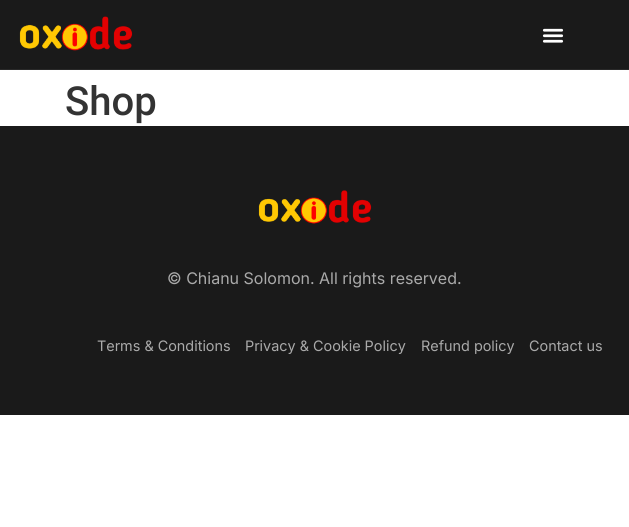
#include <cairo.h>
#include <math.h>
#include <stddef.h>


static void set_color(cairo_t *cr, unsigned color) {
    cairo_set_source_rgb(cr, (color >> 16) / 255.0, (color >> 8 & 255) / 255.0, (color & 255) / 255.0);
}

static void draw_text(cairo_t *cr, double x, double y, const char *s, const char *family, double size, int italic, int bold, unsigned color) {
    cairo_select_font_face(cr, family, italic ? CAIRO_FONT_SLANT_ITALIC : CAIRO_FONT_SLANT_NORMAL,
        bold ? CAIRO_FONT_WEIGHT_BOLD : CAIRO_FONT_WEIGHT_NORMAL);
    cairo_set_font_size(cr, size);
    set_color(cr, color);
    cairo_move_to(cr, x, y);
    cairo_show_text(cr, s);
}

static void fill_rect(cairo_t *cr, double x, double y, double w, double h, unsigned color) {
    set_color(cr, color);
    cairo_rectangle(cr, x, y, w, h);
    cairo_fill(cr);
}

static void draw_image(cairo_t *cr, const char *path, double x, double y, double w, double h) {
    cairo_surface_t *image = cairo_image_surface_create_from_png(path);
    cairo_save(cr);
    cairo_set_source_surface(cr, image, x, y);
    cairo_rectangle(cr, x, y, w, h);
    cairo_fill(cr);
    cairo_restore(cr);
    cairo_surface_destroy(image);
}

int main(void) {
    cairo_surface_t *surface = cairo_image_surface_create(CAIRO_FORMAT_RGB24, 629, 527);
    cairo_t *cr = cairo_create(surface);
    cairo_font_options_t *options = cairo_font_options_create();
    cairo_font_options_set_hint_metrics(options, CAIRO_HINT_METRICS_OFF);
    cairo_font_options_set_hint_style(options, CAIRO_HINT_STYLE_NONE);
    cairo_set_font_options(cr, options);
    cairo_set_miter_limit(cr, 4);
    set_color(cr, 0xFFFFFF);
    cairo_paint(cr);
    fill_rect(cr, 0, 0, 629, 69, 0x1A1A1A);
    fill_rect(cr, 0, 69, 629, 1, 0x292929);
    draw_image(cr, "assets/img1.png", 19, 16, 114, 35);
    draw_image(cr, "assets/img2.png", 542, 28, 22, 15);
    draw_text(cr, 65, 115, "Shop", "Roboto Medium", 40, 0, 0, 0x333333);
    fill_rect(cr, 0, 126, 629, 289, 0x1A1A1A);
    draw_image(cr, "assets/img3.png", 258, 190, 114, 34);
    draw_text(cr, 167, 284, "© Chianu Solomon. All rights reserved.", "Inter", 16, 0, 0, 0xAAAAAA);
    draw_text(cr, 97, 351, "Terms & Conditions", "Inter", 14.4, 0, 0, 0xAAAAAA);
    draw_text(cr, 245, 351, "Privacy & Cookie Policy", "Inter", 14.4, 0, 0, 0xAAAAAA);
    draw_text(cr, 421, 351, "Refund policy", "Inter", 14.4, 0, 0, 0xAAAAAA);
    draw_text(cr, 529, 351, "Contact us", "Inter", 14.4, 0, 0, 0xAAAAAA);
    cairo_surface_write_to_png(surface, "output.png");
    cairo_font_options_destroy(options);
    cairo_destroy(cr);
    cairo_surface_destroy(surface);
    return 0;
}
